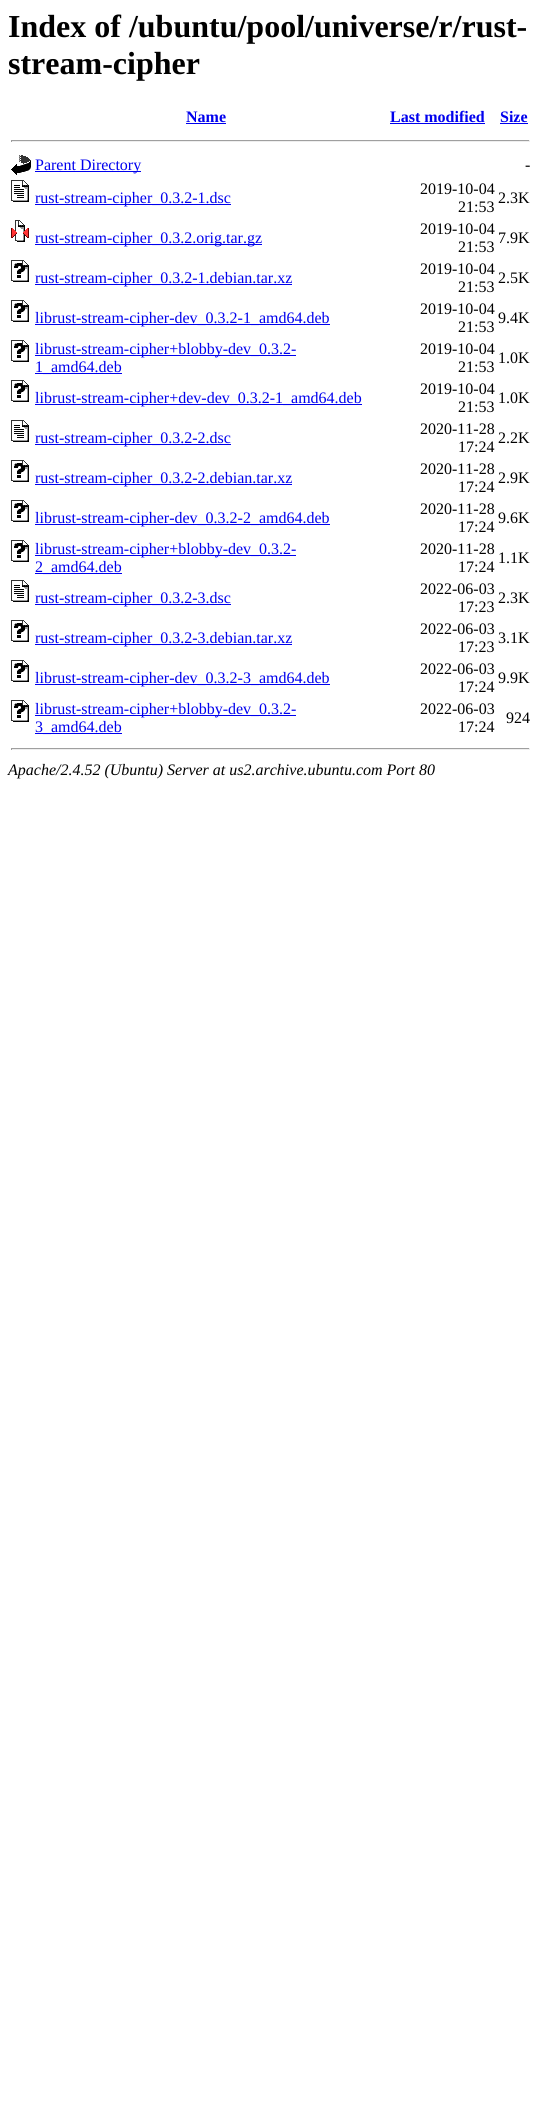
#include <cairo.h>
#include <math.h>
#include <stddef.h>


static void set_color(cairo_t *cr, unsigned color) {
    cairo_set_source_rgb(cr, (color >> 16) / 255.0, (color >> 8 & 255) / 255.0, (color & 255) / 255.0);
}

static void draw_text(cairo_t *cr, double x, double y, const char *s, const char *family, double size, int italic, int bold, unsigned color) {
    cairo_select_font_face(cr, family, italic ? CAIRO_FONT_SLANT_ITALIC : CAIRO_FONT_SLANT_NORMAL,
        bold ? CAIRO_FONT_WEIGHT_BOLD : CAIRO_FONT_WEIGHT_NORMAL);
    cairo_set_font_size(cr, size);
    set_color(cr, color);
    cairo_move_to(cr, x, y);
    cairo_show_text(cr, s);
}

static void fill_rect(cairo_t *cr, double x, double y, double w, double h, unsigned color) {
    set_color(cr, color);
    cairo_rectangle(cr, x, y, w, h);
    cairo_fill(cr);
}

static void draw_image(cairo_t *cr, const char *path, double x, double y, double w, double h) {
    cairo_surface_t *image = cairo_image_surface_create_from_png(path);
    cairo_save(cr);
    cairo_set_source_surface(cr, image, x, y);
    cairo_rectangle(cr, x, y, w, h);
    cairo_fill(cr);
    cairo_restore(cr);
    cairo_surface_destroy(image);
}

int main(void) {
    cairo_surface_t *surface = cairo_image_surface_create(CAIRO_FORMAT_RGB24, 541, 2123);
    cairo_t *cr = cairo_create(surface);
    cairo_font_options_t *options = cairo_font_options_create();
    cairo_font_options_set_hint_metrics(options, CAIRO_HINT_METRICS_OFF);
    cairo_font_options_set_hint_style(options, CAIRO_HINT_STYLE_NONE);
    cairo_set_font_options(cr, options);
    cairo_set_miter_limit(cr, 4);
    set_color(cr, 0xFFFFFF);
    cairo_paint(cr);
    draw_text(cr, 8, 37, "Index of /ubuntu/pool/universe/r/rust-", "Liberation Serif", 32, 0, 1, 0x000000);
    draw_text(cr, 8, 74, "stream-cipher", "Liberation Serif", 32, 0, 1, 0x000000);
    draw_text(cr, 186, 122, "Name", "Liberation Serif", 16, 0, 1, 0x0000EE);
    fill_rect(cr, 186, 123, 40, 1, 0x0000EE);
    draw_text(cr, 390, 122, "Last modified", "Liberation Serif", 16, 0, 1, 0x0000EE);
    fill_rect(cr, 390, 123, 95, 1, 0x0000EE);
    draw_text(cr, 500, 122, "Size", "Liberation Serif", 16, 0, 1, 0x0000EE);
    fill_rect(cr, 500, 123, 28, 1, 0x0000EE);
    fill_rect(cr, 11, 140, 519, 1, 0x9F9F9F);
    fill_rect(cr, 529, 140, 1, 2, 0xEEEEEE);
    fill_rect(cr, 11, 141, 519, 1, 0xEEEEEE);
    fill_rect(cr, 11, 140, 1, 2, 0x9F9F9F);
    draw_image(cr, "assets/img1.png", 11, 155, 20, 20);
    fill_rect(cr, 35, 171, 106, 1, 0x0000EE);
    draw_text(cr, 35, 170, "Parent Directory", "Liberation Serif", 16, 0, 0, 0x0000EE);
    draw_text(cr, 525, 170, "-", "Liberation Serif", 16, 0, 0, 0x000000);
    draw_image(cr, "assets/img2.png", 11, 180, 18, 22);
    fill_rect(cr, 35, 204, 196, 1, 0x0000EE);
    draw_text(cr, 35, 203, "rust-stream-cipher_0.3.2-1.dsc", "Liberation Serif", 16, 0, 0, 0x0000EE);
    draw_text(cr, 420, 194, "2019-10-04", "Liberation Serif", 16, 0, 0, 0x000000);
    draw_text(cr, 458, 212, "21:53", "Liberation Serif", 16, 0, 0, 0x000000);
    draw_text(cr, 498, 203, "2.3K", "Liberation Serif", 16, 0, 0, 0x000000);
    draw_image(cr, "assets/img3.png", 11, 220, 18, 22);
    fill_rect(cr, 35, 244, 227, 1, 0x0000EE);
    draw_text(cr, 35, 243, "rust-stream-cipher_0.3.2.orig.tar.gz", "Liberation Serif", 16, 0, 0, 0x0000EE);
    draw_text(cr, 420, 234, "2019-10-04", "Liberation Serif", 16, 0, 0, 0x000000);
    draw_text(cr, 458, 252, "21:53", "Liberation Serif", 16, 0, 0, 0x000000);
    draw_text(cr, 498, 243, "7.9K", "Liberation Serif", 16, 0, 0, 0x000000);
    draw_image(cr, "assets/img4.png", 11, 260, 18, 22);
    fill_rect(cr, 35, 284, 257, 1, 0x0000EE);
    draw_text(cr, 35, 283, "rust-stream-cipher_0.3.2-1.debian.tar.xz", "Liberation Serif", 16, 0, 0, 0x0000EE);
    draw_text(cr, 420, 274, "2019-10-04", "Liberation Serif", 16, 0, 0, 0x000000);
    draw_text(cr, 458, 292, "21:53", "Liberation Serif", 16, 0, 0, 0x000000);
    draw_text(cr, 498, 283, "2.5K", "Liberation Serif", 16, 0, 0, 0x000000);
    draw_image(cr, "assets/img4.png", 11, 300, 18, 22);
    fill_rect(cr, 35, 324, 295, 1, 0x0000EE);
    draw_text(cr, 35, 323, "librust-stream-cipher-dev_0.3.2-1_amd64.deb", "Liberation Serif", 16, 0, 0, 0x0000EE);
    draw_text(cr, 420, 314, "2019-10-04", "Liberation Serif", 16, 0, 0, 0x000000);
    draw_text(cr, 458, 332, "21:53", "Liberation Serif", 16, 0, 0, 0x000000);
    draw_text(cr, 498, 323, "9.4K", "Liberation Serif", 16, 0, 0, 0x000000);
    draw_image(cr, "assets/img4.png", 11, 340, 18, 22);
    fill_rect(cr, 35, 355, 261, 1, 0x0000EE);
    draw_text(cr, 35, 354, "librust-stream-cipher+blobby-dev_0.3.2-", "Liberation Serif", 16, 0, 0, 0x0000EE);
    fill_rect(cr, 35, 373, 87, 1, 0x0000EE);
    draw_text(cr, 35, 372, "1_amd64.deb", "Liberation Serif", 16, 0, 0, 0x0000EE);
    draw_text(cr, 420, 354, "2019-10-04", "Liberation Serif", 16, 0, 0, 0x000000);
    draw_text(cr, 458, 372, "21:53", "Liberation Serif", 16, 0, 0, 0x000000);
    draw_text(cr, 498, 363, "1.0K", "Liberation Serif", 16, 0, 0, 0x000000);
    draw_image(cr, "assets/img4.png", 11, 380, 18, 22);
    fill_rect(cr, 35, 404, 327, 1, 0x0000EE);
    draw_text(cr, 35, 403, "librust-stream-cipher+dev-dev_0.3.2-1_amd64.deb", "Liberation Serif", 16, 0, 0, 0x0000EE);
    draw_text(cr, 420, 394, "2019-10-04", "Liberation Serif", 16, 0, 0, 0x000000);
    draw_text(cr, 458, 412, "21:53", "Liberation Serif", 16, 0, 0, 0x000000);
    draw_text(cr, 498, 403, "1.0K", "Liberation Serif", 16, 0, 0, 0x000000);
    draw_image(cr, "assets/img2.png", 11, 420, 18, 22);
    fill_rect(cr, 35, 444, 196, 1, 0x0000EE);
    draw_text(cr, 35, 443, "rust-stream-cipher_0.3.2-2.dsc", "Liberation Serif", 16, 0, 0, 0x0000EE);
    draw_text(cr, 420, 434, "2020-11-28", "Liberation Serif", 16, 0, 0, 0x000000);
    draw_text(cr, 458, 452, "17:24", "Liberation Serif", 16, 0, 0, 0x000000);
    draw_text(cr, 498, 443, "2.2K", "Liberation Serif", 16, 0, 0, 0x000000);
    draw_image(cr, "assets/img4.png", 11, 460, 18, 22);
    fill_rect(cr, 35, 484, 257, 1, 0x0000EE);
    draw_text(cr, 35, 483, "rust-stream-cipher_0.3.2-2.debian.tar.xz", "Liberation Serif", 16, 0, 0, 0x0000EE);
    draw_text(cr, 420, 474, "2020-11-28", "Liberation Serif", 16, 0, 0, 0x000000);
    draw_text(cr, 458, 492, "17:24", "Liberation Serif", 16, 0, 0, 0x000000);
    draw_text(cr, 498, 483, "2.9K", "Liberation Serif", 16, 0, 0, 0x000000);
    draw_image(cr, "assets/img4.png", 11, 500, 18, 22);
    fill_rect(cr, 35, 524, 295, 1, 0x0000EE);
    draw_text(cr, 35, 523, "librust-stream-cipher-dev_0.3.2-2_amd64.deb", "Liberation Serif", 16, 0, 0, 0x0000EE);
    draw_text(cr, 420, 514, "2020-11-28", "Liberation Serif", 16, 0, 0, 0x000000);
    draw_text(cr, 458, 532, "17:24", "Liberation Serif", 16, 0, 0, 0x000000);
    draw_text(cr, 498, 523, "9.6K", "Liberation Serif", 16, 0, 0, 0x000000);
    draw_image(cr, "assets/img4.png", 11, 540, 18, 22);
    fill_rect(cr, 35, 555, 261, 1, 0x0000EE);
    draw_text(cr, 35, 554, "librust-stream-cipher+blobby-dev_0.3.2-", "Liberation Serif", 16, 0, 0, 0x0000EE);
    fill_rect(cr, 35, 573, 87, 1, 0x0000EE);
    draw_text(cr, 35, 572, "2_amd64.deb", "Liberation Serif", 16, 0, 0, 0x0000EE);
    draw_text(cr, 420, 554, "2020-11-28", "Liberation Serif", 16, 0, 0, 0x000000);
    draw_text(cr, 458, 572, "17:24", "Liberation Serif", 16, 0, 0, 0x000000);
    draw_text(cr, 498, 563, "1.1K", "Liberation Serif", 16, 0, 0, 0x000000);
    draw_image(cr, "assets/img2.png", 11, 580, 18, 22);
    fill_rect(cr, 35, 604, 196, 1, 0x0000EE);
    draw_text(cr, 35, 603, "rust-stream-cipher_0.3.2-3.dsc", "Liberation Serif", 16, 0, 0, 0x0000EE);
    draw_text(cr, 420, 594, "2022-06-03", "Liberation Serif", 16, 0, 0, 0x000000);
    draw_text(cr, 458, 612, "17:23", "Liberation Serif", 16, 0, 0, 0x000000);
    draw_text(cr, 498, 603, "2.3K", "Liberation Serif", 16, 0, 0, 0x000000);
    draw_image(cr, "assets/img4.png", 11, 620, 18, 22);
    fill_rect(cr, 35, 644, 257, 1, 0x0000EE);
    draw_text(cr, 35, 643, "rust-stream-cipher_0.3.2-3.debian.tar.xz", "Liberation Serif", 16, 0, 0, 0x0000EE);
    draw_text(cr, 420, 634, "2022-06-03", "Liberation Serif", 16, 0, 0, 0x000000);
    draw_text(cr, 458, 652, "17:23", "Liberation Serif", 16, 0, 0, 0x000000);
    draw_text(cr, 498, 643, "3.1K", "Liberation Serif", 16, 0, 0, 0x000000);
    draw_image(cr, "assets/img4.png", 11, 660, 18, 22);
    fill_rect(cr, 35, 684, 295, 1, 0x0000EE);
    draw_text(cr, 35, 683, "librust-stream-cipher-dev_0.3.2-3_amd64.deb", "Liberation Serif", 16, 0, 0, 0x0000EE);
    draw_text(cr, 420, 674, "2022-06-03", "Liberation Serif", 16, 0, 0, 0x000000);
    draw_text(cr, 458, 692, "17:24", "Liberation Serif", 16, 0, 0, 0x000000);
    draw_text(cr, 498, 683, "9.9K", "Liberation Serif", 16, 0, 0, 0x000000);
    draw_image(cr, "assets/img4.png", 11, 700, 18, 22);
    fill_rect(cr, 35, 715, 261, 1, 0x0000EE);
    draw_text(cr, 35, 714, "librust-stream-cipher+blobby-dev_0.3.2-", "Liberation Serif", 16, 0, 0, 0x0000EE);
    fill_rect(cr, 35, 733, 87, 1, 0x0000EE);
    draw_text(cr, 35, 732, "3_amd64.deb", "Liberation Serif", 16, 0, 0, 0x0000EE);
    draw_text(cr, 420, 714, "2022-06-03", "Liberation Serif", 16, 0, 0, 0x000000);
    draw_text(cr, 458, 732, "17:24", "Liberation Serif", 16, 0, 0, 0x000000);
    draw_text(cr, 506, 723, "924", "Liberation Serif", 16, 0, 0, 0x000000);
    fill_rect(cr, 11, 748, 519, 1, 0x9F9F9F);
    fill_rect(cr, 529, 748, 1, 2, 0xEEEEEE);
    fill_rect(cr, 11, 749, 519, 1, 0xEEEEEE);
    fill_rect(cr, 11, 748, 1, 2, 0x9F9F9F);
    draw_text(cr, 8, 775, "Apache/2.4.52 (Ubuntu) Server at us2.archive.ubuntu.com Port 80", "Liberation Serif", 16, 1, 0, 0x000000);
    cairo_surface_write_to_png(surface, "output.png");
    cairo_font_options_destroy(options);
    cairo_destroy(cr);
    cairo_surface_destroy(surface);
    return 0;
}
